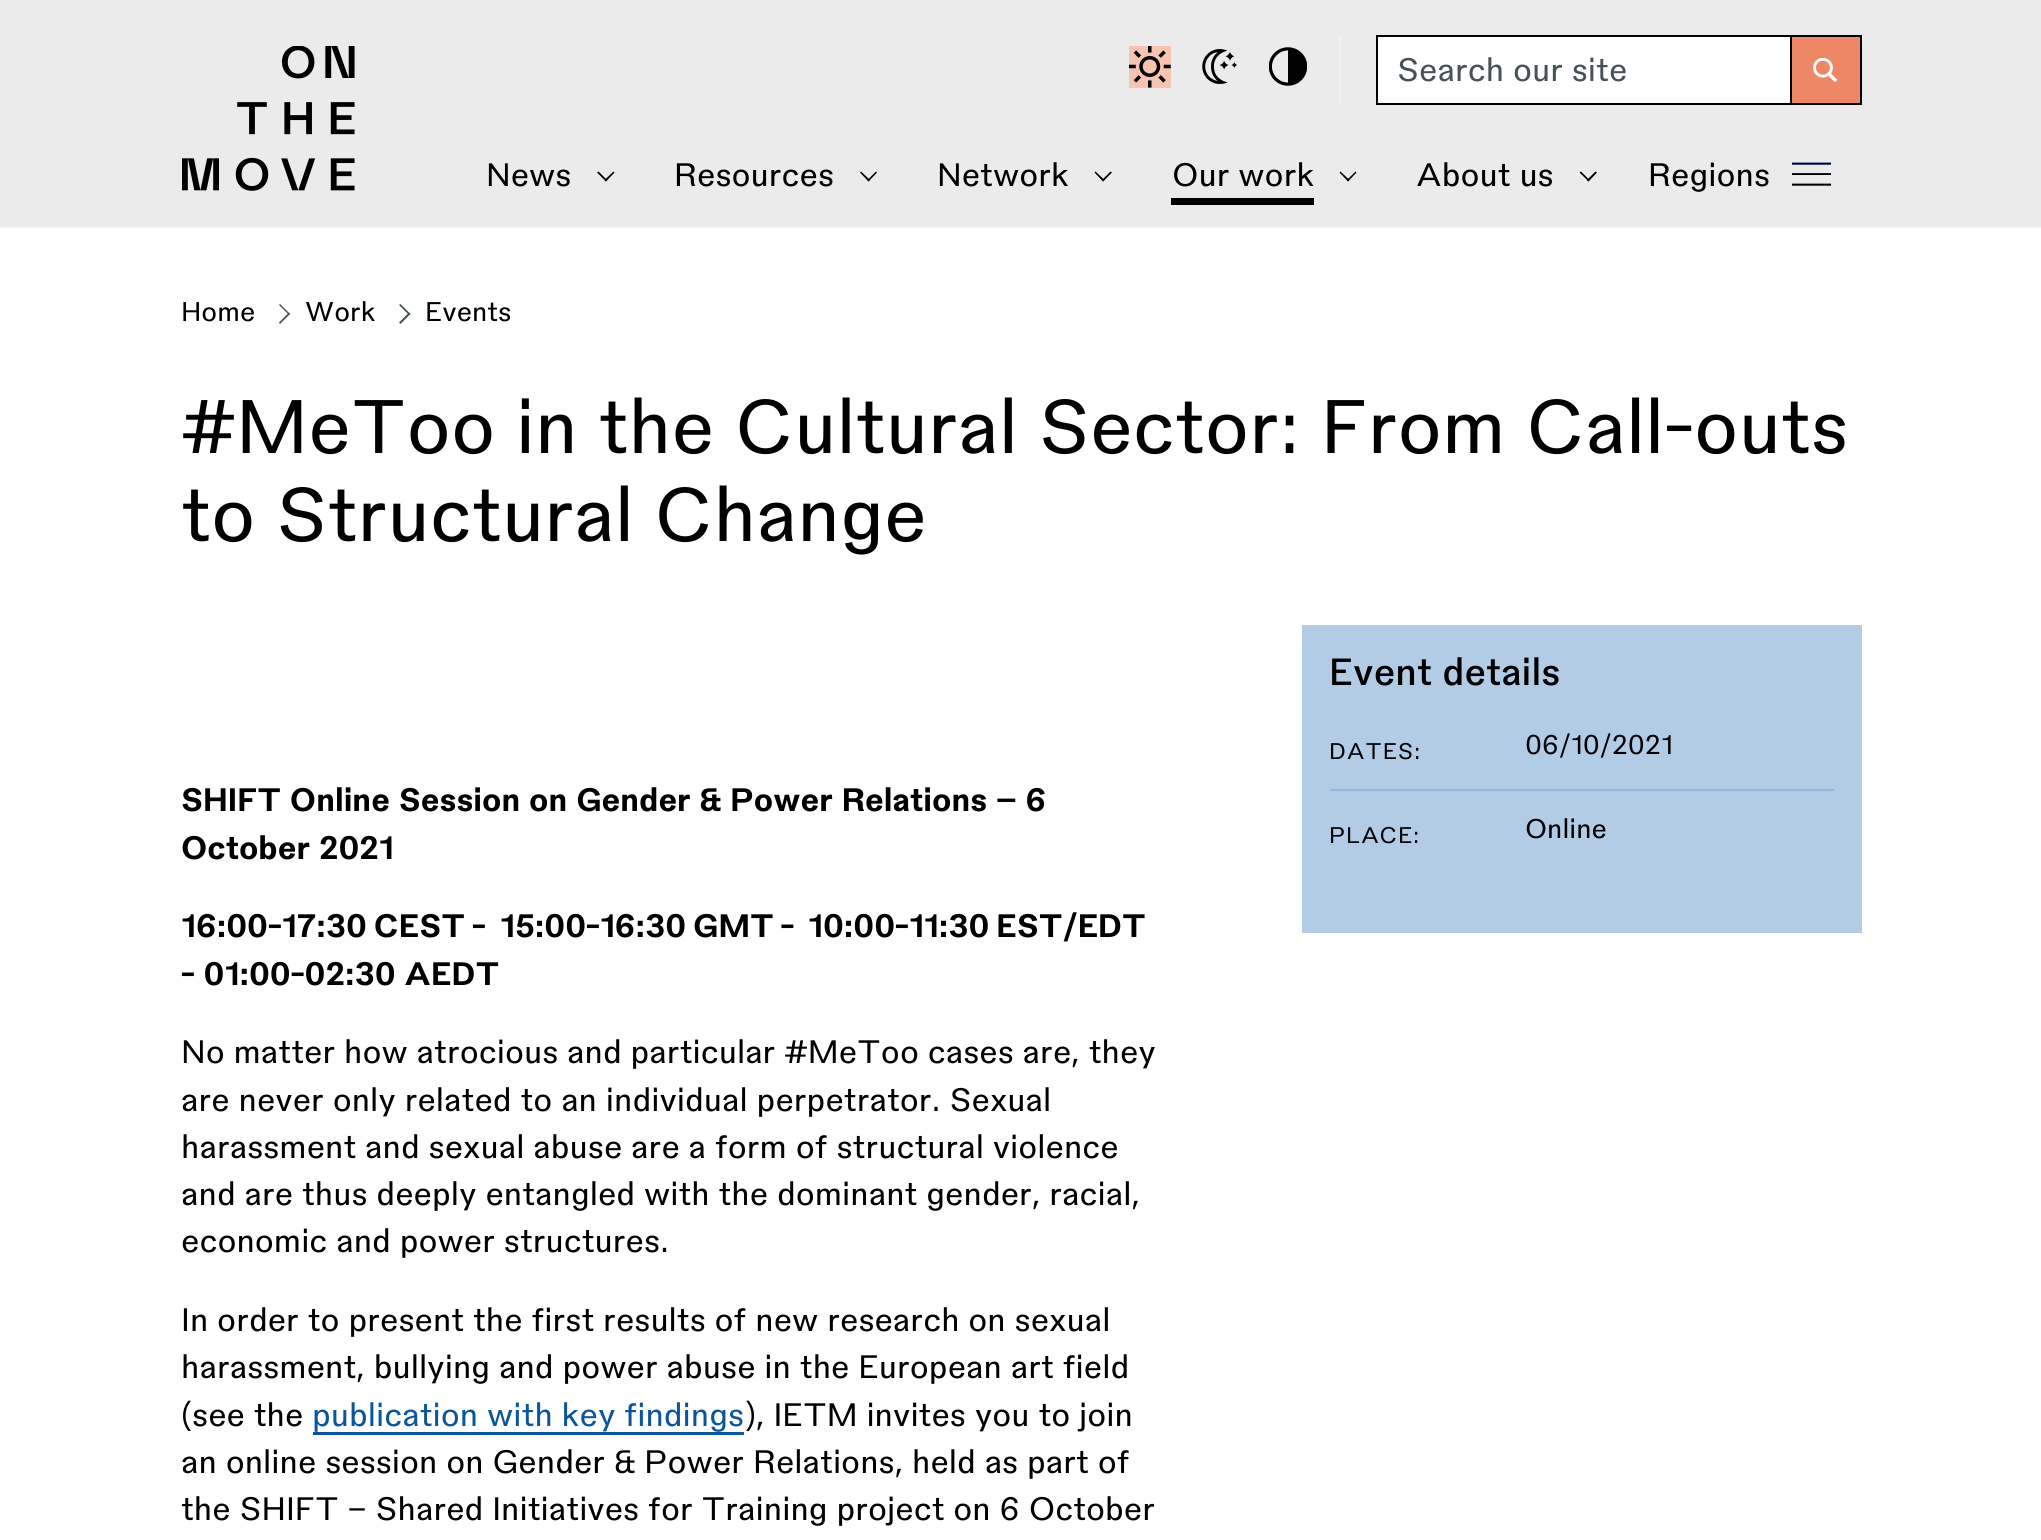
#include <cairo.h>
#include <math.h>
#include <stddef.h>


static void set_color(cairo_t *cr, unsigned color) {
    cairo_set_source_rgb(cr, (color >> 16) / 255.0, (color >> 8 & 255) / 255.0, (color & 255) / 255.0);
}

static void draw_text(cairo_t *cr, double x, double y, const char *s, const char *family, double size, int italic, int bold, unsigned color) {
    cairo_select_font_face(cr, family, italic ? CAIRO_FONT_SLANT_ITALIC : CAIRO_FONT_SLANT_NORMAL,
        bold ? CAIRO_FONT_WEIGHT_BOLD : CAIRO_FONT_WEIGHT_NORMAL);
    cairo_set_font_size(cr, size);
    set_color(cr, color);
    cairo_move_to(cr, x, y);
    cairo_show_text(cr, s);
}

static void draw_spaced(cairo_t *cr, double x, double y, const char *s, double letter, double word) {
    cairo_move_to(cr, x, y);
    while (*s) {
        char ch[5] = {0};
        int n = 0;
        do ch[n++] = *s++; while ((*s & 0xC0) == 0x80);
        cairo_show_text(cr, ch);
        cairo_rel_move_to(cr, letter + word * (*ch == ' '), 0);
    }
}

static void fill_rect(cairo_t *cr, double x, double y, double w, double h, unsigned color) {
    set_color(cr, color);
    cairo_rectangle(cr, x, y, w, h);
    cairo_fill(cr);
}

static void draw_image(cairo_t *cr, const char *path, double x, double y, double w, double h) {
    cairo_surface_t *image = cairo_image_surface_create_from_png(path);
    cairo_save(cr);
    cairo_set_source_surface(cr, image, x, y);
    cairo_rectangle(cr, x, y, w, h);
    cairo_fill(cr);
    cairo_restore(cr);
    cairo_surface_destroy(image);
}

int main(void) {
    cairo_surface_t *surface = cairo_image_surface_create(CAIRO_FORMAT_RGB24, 2041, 1540);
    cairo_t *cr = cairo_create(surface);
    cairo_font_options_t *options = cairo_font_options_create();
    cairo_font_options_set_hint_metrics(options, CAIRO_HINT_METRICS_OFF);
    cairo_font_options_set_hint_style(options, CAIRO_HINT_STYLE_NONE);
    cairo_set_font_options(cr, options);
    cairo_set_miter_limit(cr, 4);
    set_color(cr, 0xFFFFFF);
    cairo_paint(cr);
    fill_rect(cr, 0, 0, 2041, 226, 0xEBEBEB);
    fill_rect(cr, 0, 226, 2041, 2, 0xF0F1F4);
    draw_image(cr, "assets/img1.png", 182, 46, 173, 145);
    fill_rect(cr, 1129, 46, 42, 42, 0xF7C4B2);
    draw_image(cr, "assets/img2.png", 1129, 46, 42, 42);
    draw_image(cr, "assets/img3.png", 1202, 49, 35, 35);
    draw_image(cr, "assets/img4.png", 1269, 47, 38, 39);
    fill_rect(cr, 1339, 35, 2, 70, 0xF0F1F4);
    set_color(cr, 0xFFFFFF);
    cairo_rectangle(cr, 1377, 36, 414, 68);
    cairo_fill_preserve(cr);
    set_color(cr, 0x000000);
    cairo_stroke(cr);
    draw_text(cr, 1397, 81, "Search our site", "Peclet", 31.5, 0, 0, 0x475257);
    fill_rect(cr, 1792, 37, 68, 66, 0xED8766);
    draw_image(cr, "assets/img5.png", 1813, 58, 25, 24);
    fill_rect(cr, 1792, 35, 70, 2, 0x000000);
    fill_rect(cr, 1860, 35, 2, 70, 0x000000);
    fill_rect(cr, 1792, 103, 70, 2, 0x000000);
    draw_text(cr, 486, 186, "News", "Peclet", 31.5, 0, 0, 0x000000);
    cairo_new_path(cr);
    cairo_move_to(cr, 614.5, 172.5);
    cairo_line_to(cr, 606, 181.5);
    cairo_line_to(cr, 604.5, 180);
    cairo_line_to(cr, 613.5, 171.5);
    cairo_close_path(cr);
    cairo_fill(cr);
    cairo_new_path(cr);
    cairo_move_to(cr, 607, 180);
    cairo_line_to(cr, 606, 181.5);
    cairo_line_to(cr, 597, 172.5);
    cairo_line_to(cr, 598.5, 171.5);
    cairo_close_path(cr);
    cairo_fill(cr);
    draw_text(cr, 674, 186, "Resources", "Peclet", 31.5, 0, 0, 0x000000);
    cairo_new_path(cr);
    cairo_move_to(cr, 877, 172.5);
    cairo_line_to(cr, 868.5, 181.5);
    cairo_line_to(cr, 867.5, 180);
    cairo_line_to(cr, 876, 171.5);
    cairo_close_path(cr);
    cairo_fill(cr);
    cairo_new_path(cr);
    cairo_move_to(cr, 870, 180);
    cairo_line_to(cr, 868.5, 181.5);
    cairo_line_to(cr, 860, 172.5);
    cairo_line_to(cr, 861, 171.5);
    cairo_close_path(cr);
    cairo_fill(cr);
    draw_text(cr, 937, 186, "Network", "Peclet", 31.5, 0, 0, 0x000000);
    cairo_new_path(cr);
    cairo_move_to(cr, 1112, 172.5);
    cairo_line_to(cr, 1103, 181.5);
    cairo_line_to(cr, 1102, 180);
    cairo_line_to(cr, 1110.5, 171.5);
    cairo_close_path(cr);
    cairo_fill(cr);
    cairo_new_path(cr);
    cairo_move_to(cr, 1104.5, 180);
    cairo_line_to(cr, 1103, 181.5);
    cairo_line_to(cr, 1094.5, 172.5);
    cairo_line_to(cr, 1095.5, 171.5);
    cairo_close_path(cr);
    cairo_fill(cr);
    draw_text(cr, 1172, 186, "Our work", "Peclet", 31.5, 0, 0, 0x000000);
    fill_rect(cr, 1171, 198, 143, 7, 0x000000);
    cairo_new_path(cr);
    cairo_move_to(cr, 1356.5, 172.5);
    cairo_line_to(cr, 1348, 181.5);
    cairo_line_to(cr, 1347, 180);
    cairo_line_to(cr, 1355.5, 171.5);
    cairo_close_path(cr);
    cairo_fill(cr);
    cairo_new_path(cr);
    cairo_move_to(cr, 1349.5, 180);
    cairo_line_to(cr, 1348, 181.5);
    cairo_line_to(cr, 1339.5, 172.5);
    cairo_line_to(cr, 1340.5, 171.5);
    cairo_close_path(cr);
    cairo_fill(cr);
    draw_text(cr, 1416, 186, "About us", "Peclet", 31.5, 0, 0, 0x000000);
    cairo_new_path(cr);
    cairo_move_to(cr, 1597, 172.5);
    cairo_line_to(cr, 1588.5, 181.5);
    cairo_line_to(cr, 1587, 180);
    cairo_line_to(cr, 1595.5, 171.5);
    cairo_close_path(cr);
    cairo_fill(cr);
    cairo_new_path(cr);
    cairo_move_to(cr, 1589.5, 180);
    cairo_line_to(cr, 1588.5, 181.5);
    cairo_line_to(cr, 1579.5, 172.5);
    cairo_line_to(cr, 1581, 171.5);
    cairo_close_path(cr);
    cairo_fill(cr);
    draw_text(cr, 1648, 186, "Regions", "Peclet", 31.5, 0, 0, 0x000000);
    draw_image(cr, "assets/img6.png", 1792, 162, 39, 24);
    draw_text(cr, 181, 321, "Home", "Peclet", 26.25, 0, 0, 0x000000);
    set_color(cr, 0x475257);
    cairo_new_path(cr);
    cairo_move_to(cr, 280, 304);
    cairo_line_to(cr, 290, 314);
    cairo_line_to(cr, 289, 315);
    cairo_line_to(cr, 279, 305);
    cairo_close_path(cr);
    cairo_fill(cr);
    cairo_new_path(cr);
    cairo_move_to(cr, 289, 312.5);
    cairo_line_to(cr, 290, 314);
    cairo_line_to(cr, 280, 324);
    cairo_line_to(cr, 279, 322.5);
    cairo_close_path(cr);
    cairo_fill(cr);
    draw_text(cr, 305, 321, "Work", "Peclet", 26.25, 0, 0, 0x000000);
    set_color(cr, 0x475257);
    cairo_new_path(cr);
    cairo_move_to(cr, 400.5, 304);
    cairo_line_to(cr, 410.5, 314);
    cairo_line_to(cr, 409, 315);
    cairo_line_to(cr, 399, 305);
    cairo_close_path(cr);
    cairo_fill(cr);
    cairo_new_path(cr);
    cairo_move_to(cr, 409, 312.5);
    cairo_line_to(cr, 410.5, 314);
    cairo_line_to(cr, 400.5, 324);
    cairo_line_to(cr, 399, 322.5);
    cairo_close_path(cr);
    cairo_fill(cr);
    draw_text(cr, 425, 321, "Events", "Peclet", 26.25, 0, 0, 0x000000);
    draw_text(cr, 181, 453, "#MeToo in the Cultural Sector: From Call-outs", "Peclet", 73.5, 0, 0, 0x000000);
    draw_text(cr, 181, 541, "to Structural Change", "Peclet", 73.5, 0, 0, 0x000000);
    fill_rect(cr, 1302, 625, 560, 308, 0xB2CCE6);
    draw_text(cr, 1329, 685, "Event details", "Peclet Medium", 36.75, 0, 0, 0x000000);
    fill_rect(cr, 1330, 789, 504, 2, 0x93B7DC);
    cairo_select_font_face(cr, "Peclet", CAIRO_FONT_SLANT_NORMAL, CAIRO_FONT_WEIGHT_NORMAL);
    cairo_set_font_size(cr, 22);
    set_color(cr, 0x000000);
    draw_spaced(cr, 1329, 759, "DATES:", 0.75, 0);
    draw_text(cr, 1525, 754, "06/10/2021", "Peclet", 26.25, 0, 0, 0x000000);
    cairo_set_font_size(cr, 22);
    draw_spaced(cr, 1329, 843, "PLACE:", 0.75, 0);
    draw_text(cr, 1525, 838, "Online", "Peclet", 26.25, 0, 0, 0x000000);
    draw_text(cr, 181, 811, "SHIFT Online Session on Gender & Power Relations – 6", "Peclet", 31.5, 0, 1, 0x000000);
    draw_text(cr, 181, 859, "October 2021", "Peclet", 31.5, 0, 1, 0x000000);
    draw_spaced(cr, 181, 937, "16:00-17:30 CEST -", 0, -2);
    draw_spaced(cr, 500, 937, "15:00-16:30 GMT -", 0, -2);
    draw_spaced(cr, 808, 937, "10:00-11:30 EST/EDT", 0, -2);
    draw_text(cr, 181, 985, "- 01:00-02:30 AEDT", "Peclet", 31.5, 0, 1, 0x000000);
    draw_text(cr, 181, 1063, "No matter how atrocious and particular #MeToo cases are, they", "Peclet", 31.5, 0, 0, 0x000000);
    draw_text(cr, 181, 1111, "are never only related to an individual perpetrator. Sexual", "Peclet", 31.5, 0, 0, 0x000000);
    draw_text(cr, 181, 1158, "harassment and sexual abuse are a form of structural violence", "Peclet", 31.5, 0, 0, 0x000000);
    draw_text(cr, 181, 1205, "and are thus deeply entangled with the dominant gender, racial,", "Peclet", 31.5, 0, 0, 0x000000);
    draw_text(cr, 181, 1252, "economic and power structures.", "Peclet", 31.5, 0, 0, 0x000000);
    draw_text(cr, 181, 1331, "In order to present the first results of new research on sexual", "Peclet", 31.5, 0, 0, 0x000000);
    draw_text(cr, 181, 1378, "harassment, bullying and power abuse in the European art field", "Peclet", 31.5, 0, 0, 0x000000);
    draw_text(cr, 181, 1426, "(see the", "Peclet", 31.5, 0, 0, 0x000000);
    draw_text(cr, 312, 1426, "publication with key findings", "Peclet", 31.5, 0, 0, 0x0B559B);
    cairo_new_path(cr);
    cairo_move_to(cr, 313, 1404);
    cairo_line_to(cr, 313, 1435);
    cairo_line_to(cr, 744, 1435);
    cairo_line_to(cr, 744, 1404);
    cairo_line_to(cr, 744, 1432);
    cairo_line_to(cr, 313, 1432);
    cairo_close_path(cr);
    cairo_fill(cr);
    draw_text(cr, 745, 1426, "), IETM invites you to join", "Peclet", 31.5, 0, 0, 0x000000);
    draw_text(cr, 181, 1473, "an online session on Gender & Power Relations, held as part of", "Peclet", 31.5, 0, 0, 0x000000);
    draw_text(cr, 181, 1520, "the SHIFT – Shared Initiatives for Training project on 6 October", "Peclet", 31.5, 0, 0, 0x000000);
    cairo_surface_write_to_png(surface, "output.png");
    cairo_font_options_destroy(options);
    cairo_destroy(cr);
    cairo_surface_destroy(surface);
    return 0;
}
